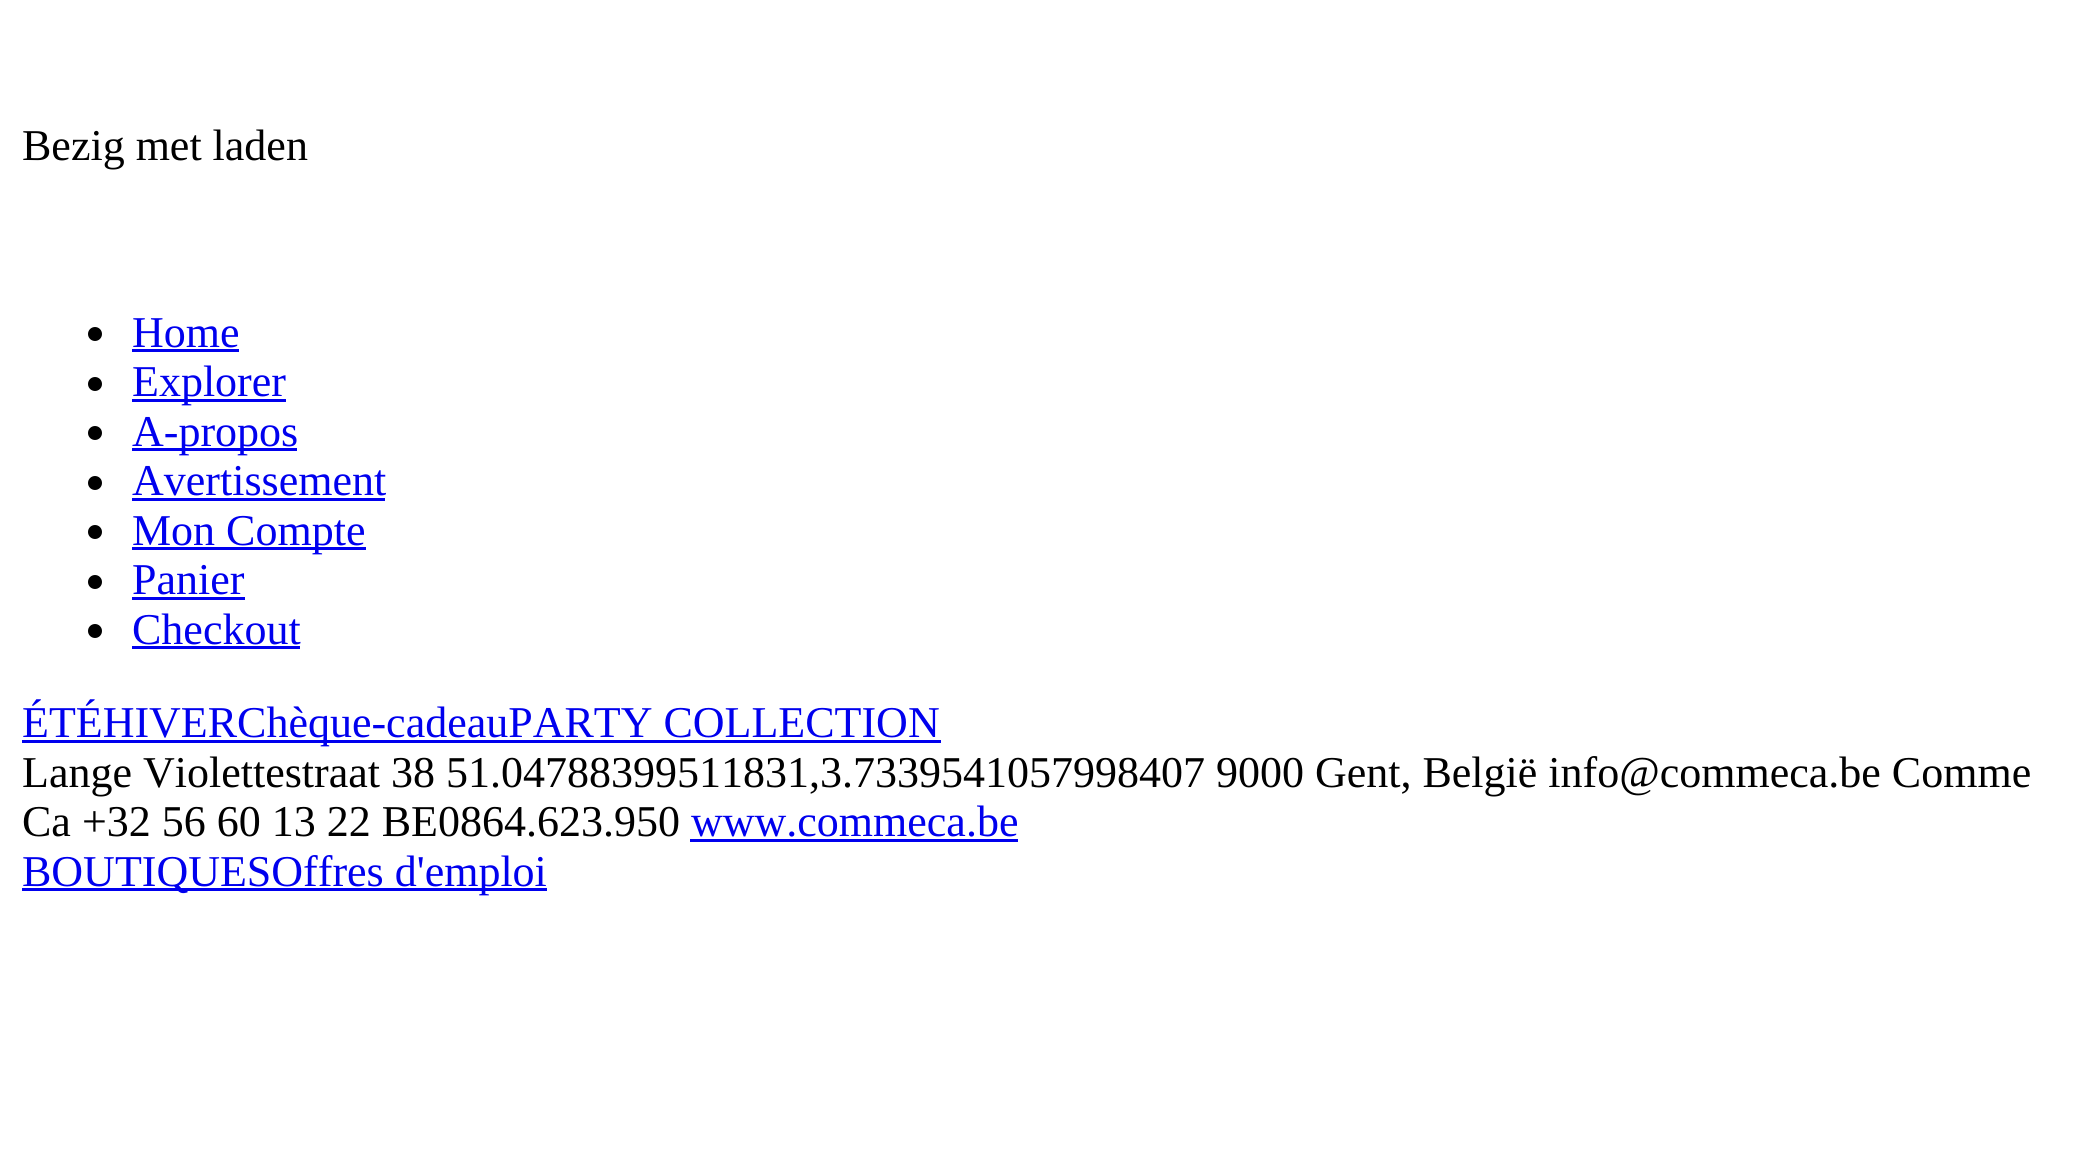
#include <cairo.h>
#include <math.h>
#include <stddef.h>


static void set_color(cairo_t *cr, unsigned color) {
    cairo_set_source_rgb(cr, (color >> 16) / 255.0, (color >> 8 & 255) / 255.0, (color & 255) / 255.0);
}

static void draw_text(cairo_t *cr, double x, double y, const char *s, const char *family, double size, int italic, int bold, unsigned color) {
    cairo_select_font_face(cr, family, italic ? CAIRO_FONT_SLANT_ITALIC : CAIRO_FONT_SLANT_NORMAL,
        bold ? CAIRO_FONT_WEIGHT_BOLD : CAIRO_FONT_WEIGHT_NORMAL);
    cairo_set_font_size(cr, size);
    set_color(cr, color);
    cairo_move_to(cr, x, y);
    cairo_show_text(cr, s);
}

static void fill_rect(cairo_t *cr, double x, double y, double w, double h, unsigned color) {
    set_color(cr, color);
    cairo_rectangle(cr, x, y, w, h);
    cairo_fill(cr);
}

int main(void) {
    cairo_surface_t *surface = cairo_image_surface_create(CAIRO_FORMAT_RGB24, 2092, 1165);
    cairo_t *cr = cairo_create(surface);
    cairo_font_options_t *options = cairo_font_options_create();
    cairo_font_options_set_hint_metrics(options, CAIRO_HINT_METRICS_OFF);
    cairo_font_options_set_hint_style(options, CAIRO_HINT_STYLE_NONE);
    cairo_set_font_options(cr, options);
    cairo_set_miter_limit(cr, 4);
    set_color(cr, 0xFFFFFF);
    cairo_paint(cr);
    draw_text(cr, 22, 160, "Bezig met laden", "Liberation Serif", 44, 0, 0, 0x000000);
    cairo_new_path(cr);
    cairo_arc(cr, 95, 334, 7, 0, 2 * M_PI);
    cairo_fill(cr);
    draw_text(cr, 132, 347, "Home", "Liberation Serif", 44, 0, 0, 0x0000EE);
    fill_rect(cr, 132, 349, 107, 3, 0x0000EE);
    set_color(cr, 0x000000);
    cairo_new_path(cr);
    cairo_arc(cr, 95, 384, 7, 0, 2 * M_PI);
    cairo_fill(cr);
    fill_rect(cr, 132, 399, 154, 3, 0x0000EE);
    draw_text(cr, 132, 396, "Explorer", "Liberation Serif", 44, 0, 0, 0x0000EE);
    set_color(cr, 0x000000);
    cairo_new_path(cr);
    cairo_arc(cr, 95, 433, 7, 0, 2 * M_PI);
    cairo_fill(cr);
    fill_rect(cr, 132, 448, 165, 3, 0x0000EE);
    draw_text(cr, 132, 446, "A-propos", "Liberation Serif", 44, 0, 0, 0x0000EE);
    set_color(cr, 0x000000);
    cairo_new_path(cr);
    cairo_arc(cr, 95, 483, 7, 0, 2 * M_PI);
    cairo_fill(cr);
    draw_text(cr, 132, 495, "Avertissement", "Liberation Serif", 44, 0, 0, 0x0000EE);
    fill_rect(cr, 132, 498, 253, 3, 0x0000EE);
    set_color(cr, 0x000000);
    cairo_new_path(cr);
    cairo_arc(cr, 95, 532, 7, 0, 2 * M_PI);
    cairo_fill(cr);
    fill_rect(cr, 132, 547, 234, 3, 0x0000EE);
    draw_text(cr, 132, 545, "Mon Compte", "Liberation Serif", 44, 0, 0, 0x0000EE);
    set_color(cr, 0x000000);
    cairo_new_path(cr);
    cairo_arc(cr, 95, 582, 7, 0, 2 * M_PI);
    cairo_fill(cr);
    draw_text(cr, 132, 594, "Panier", "Liberation Serif", 44, 0, 0, 0x0000EE);
    fill_rect(cr, 132, 597, 113, 3, 0x0000EE);
    set_color(cr, 0x000000);
    cairo_new_path(cr);
    cairo_arc(cr, 95, 631, 7, 0, 2 * M_PI);
    cairo_fill(cr);
    draw_text(cr, 132, 644, "Checkout", "Liberation Serif", 44, 0, 0, 0x0000EE);
    fill_rect(cr, 132, 646, 168, 3, 0x0000EE);
    fill_rect(cr, 22, 740, 919, 3, 0x0000EE);
    draw_text(cr, 22, 737, "ÉTÉHIVERChèque-cadeauPARTY COLLECTION", "Liberation Serif", 44, 0, 0, 0x0000EE);
    draw_text(cr, 22, 787, "Lange Violettestraat 38 51.04788399511831,3.7339541057998407 9000 Gent, België info@commeca.be Comme", "Liberation Serif", 44, 0, 0, 0x000000);
    draw_text(cr, 22, 836, "Ca +32 56 60 13 22 BE0864.623.950", "Liberation Serif", 44, 0, 0, 0x000000);
    draw_text(cr, 691, 836, "www.commeca.be", "Liberation Serif", 44, 0, 0, 0x0000EE);
    fill_rect(cr, 690, 839, 328, 3, 0x0000EE);
    fill_rect(cr, 22, 888, 525, 3, 0x0000EE);
    draw_text(cr, 22, 886, "BOUTIQUESOffres d'emploi", "Liberation Serif", 44, 0, 0, 0x0000EE);
    cairo_surface_write_to_png(surface, "output.png");
    cairo_font_options_destroy(options);
    cairo_destroy(cr);
    cairo_surface_destroy(surface);
    return 0;
}
